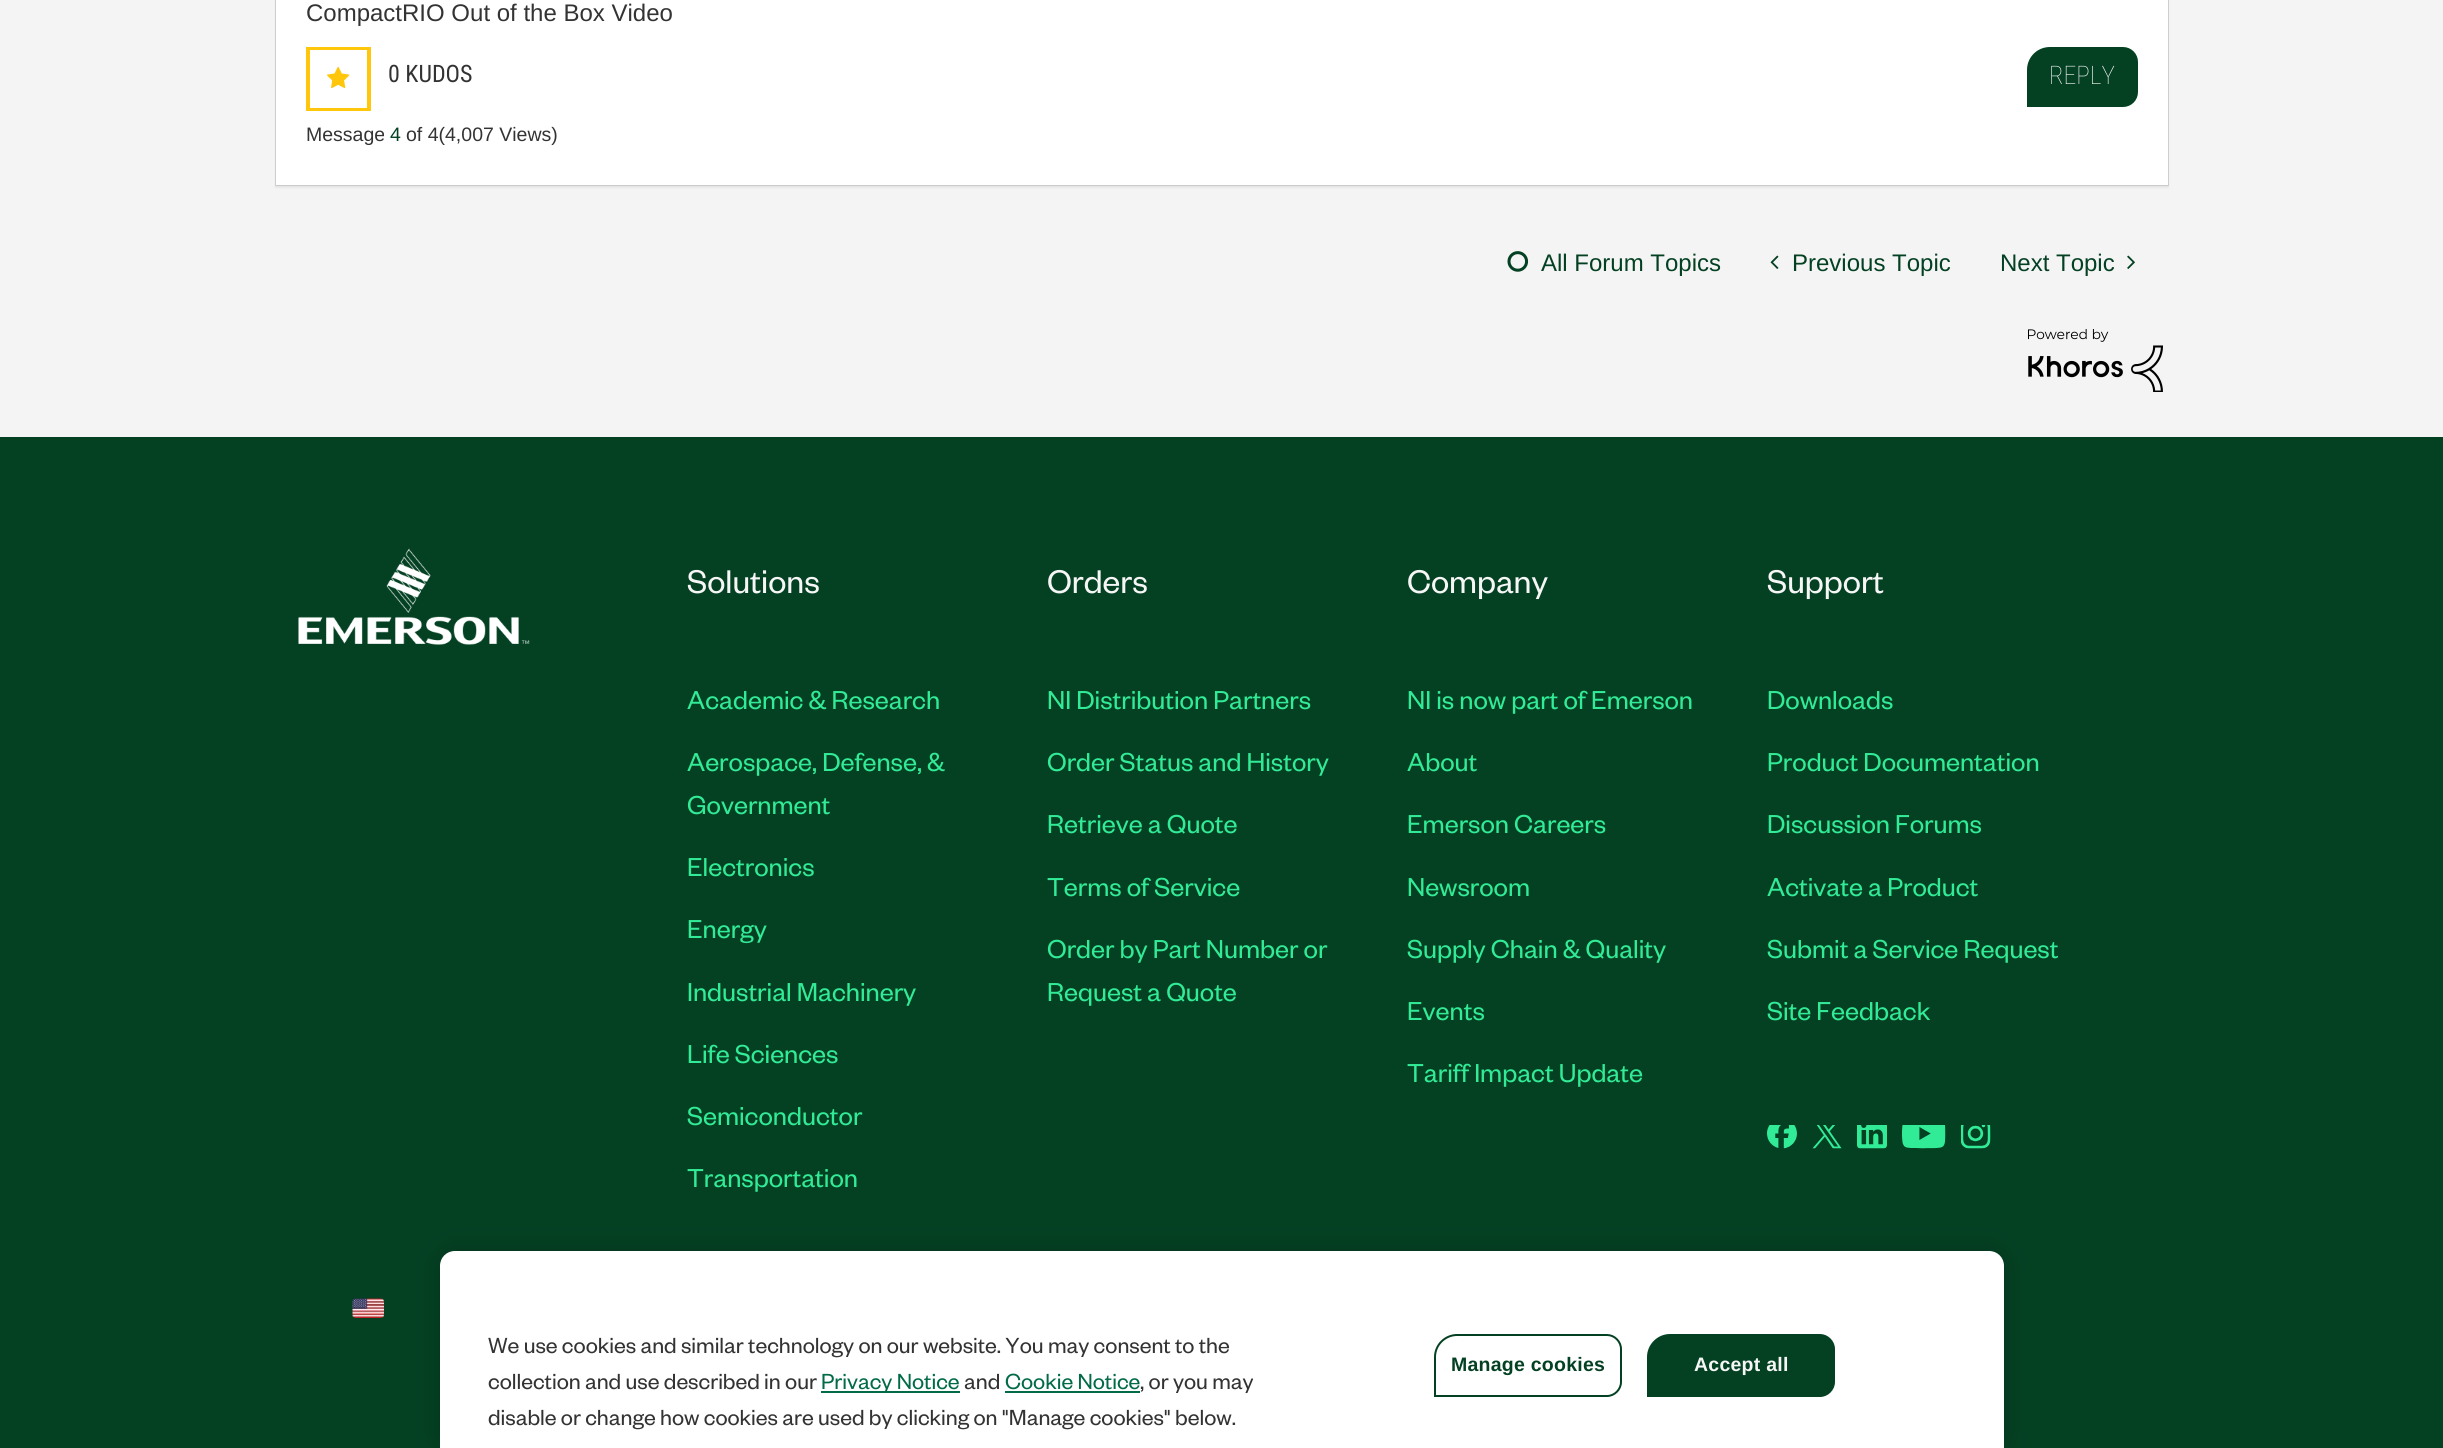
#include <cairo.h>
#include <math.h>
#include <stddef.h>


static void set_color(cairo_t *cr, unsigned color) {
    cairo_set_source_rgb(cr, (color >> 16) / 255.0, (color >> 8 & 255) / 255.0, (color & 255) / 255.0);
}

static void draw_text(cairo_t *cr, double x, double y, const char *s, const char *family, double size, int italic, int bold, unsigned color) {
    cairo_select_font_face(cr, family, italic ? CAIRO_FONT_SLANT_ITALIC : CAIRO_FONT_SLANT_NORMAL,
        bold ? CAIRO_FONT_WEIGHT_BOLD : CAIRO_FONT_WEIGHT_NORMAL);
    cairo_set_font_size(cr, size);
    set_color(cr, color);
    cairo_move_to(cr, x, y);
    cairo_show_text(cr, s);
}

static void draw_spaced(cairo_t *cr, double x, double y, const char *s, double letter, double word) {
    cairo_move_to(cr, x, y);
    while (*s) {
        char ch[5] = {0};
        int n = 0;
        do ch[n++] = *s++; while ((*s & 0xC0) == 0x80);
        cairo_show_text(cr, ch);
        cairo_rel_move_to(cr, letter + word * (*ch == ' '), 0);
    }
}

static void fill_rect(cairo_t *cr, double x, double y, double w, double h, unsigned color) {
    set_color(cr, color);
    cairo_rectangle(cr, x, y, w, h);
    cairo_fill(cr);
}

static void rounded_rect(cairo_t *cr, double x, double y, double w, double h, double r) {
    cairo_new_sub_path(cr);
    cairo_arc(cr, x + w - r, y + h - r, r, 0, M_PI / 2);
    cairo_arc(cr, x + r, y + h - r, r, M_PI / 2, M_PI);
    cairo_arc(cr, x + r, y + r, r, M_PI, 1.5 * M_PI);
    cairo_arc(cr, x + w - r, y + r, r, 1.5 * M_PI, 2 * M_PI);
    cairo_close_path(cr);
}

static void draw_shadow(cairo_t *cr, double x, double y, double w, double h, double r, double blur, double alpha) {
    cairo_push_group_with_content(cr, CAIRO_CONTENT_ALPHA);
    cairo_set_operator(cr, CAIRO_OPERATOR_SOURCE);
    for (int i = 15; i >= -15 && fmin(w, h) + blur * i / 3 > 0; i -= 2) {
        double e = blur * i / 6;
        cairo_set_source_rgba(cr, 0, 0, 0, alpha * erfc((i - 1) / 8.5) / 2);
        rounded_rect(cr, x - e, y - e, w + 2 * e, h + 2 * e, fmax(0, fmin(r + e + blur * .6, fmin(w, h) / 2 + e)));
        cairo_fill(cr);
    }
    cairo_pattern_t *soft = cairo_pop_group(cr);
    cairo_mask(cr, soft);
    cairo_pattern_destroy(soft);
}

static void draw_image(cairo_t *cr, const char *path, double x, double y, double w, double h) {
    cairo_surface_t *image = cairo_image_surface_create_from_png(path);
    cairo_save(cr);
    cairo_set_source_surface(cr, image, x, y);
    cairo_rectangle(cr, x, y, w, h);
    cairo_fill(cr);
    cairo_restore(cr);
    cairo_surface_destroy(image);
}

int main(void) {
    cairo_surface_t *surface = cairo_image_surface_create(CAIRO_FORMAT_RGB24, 2443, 1448);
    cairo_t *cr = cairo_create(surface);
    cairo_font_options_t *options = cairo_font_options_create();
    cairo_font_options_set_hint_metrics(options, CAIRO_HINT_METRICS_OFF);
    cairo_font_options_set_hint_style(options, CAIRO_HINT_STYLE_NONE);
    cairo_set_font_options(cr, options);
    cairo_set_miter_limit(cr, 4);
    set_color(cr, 0xF4F4F4);
    cairo_paint(cr);
    set_color(cr, 0x000000);
    draw_shadow(cr, 275, -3, 1894, 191, 0, 1, 0.05);
    cairo_rectangle(cr, 276, -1, 1892, 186);
    set_color(cr, 0xD1D1D1);
    cairo_stroke(cr);
    set_color(cr, 0x000000);
    draw_shadow(cr, 276, -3, 1892, 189, 0, 1, 0.05);
    fill_rect(cr, 276, 0, 1892, 185, 0xFFFFFF);
    draw_text(cr, 306, 21, "CompactRIO Out of the Box Video", "Liberation Sans", 24, 0, 0, 0x333333);
    cairo_rectangle(cr, 307, 48, 63, 62);
    set_color(cr, 0xFFC60B);
    cairo_stroke(cr);
    cairo_rectangle(cr, 309, 49, 59, 60);
    cairo_stroke(cr);
    draw_image(cr, "assets/img1.png", 327, 66, 23, 23);
    draw_text(cr, 388, 82, "0 KUDOS", "Roboto Condensed", 24, 0, 0, 0x333333);
    draw_text(cr, 306, 141, "Message", "Liberation Sans", 19.5, 0, 0, 0x333333);
    draw_text(cr, 390, 141, "4", "Liberation Sans", 19.5, 0, 0, 0x044123);
    draw_text(cr, 406, 141, "of 4(4,007 Views)", "Liberation Sans", 19.5, 0, 0, 0x333333);
    set_color(cr, 0x044123);
    cairo_new_path(cr);
    cairo_move_to(cr, 2050, 48.5);
    cairo_line_to(cr, 2123, 48.5);
    cairo_curve_to(cr, 2130.5, 48.5, 2136.5, 54.5, 2136.5, 62);
    cairo_line_to(cr, 2136.5, 92);
    cairo_curve_to(cr, 2136.5, 99.5, 2130.5, 105.5, 2123, 105.5);
    cairo_line_to(cr, 2028.5, 105.5);
    cairo_line_to(cr, 2028.5, 70);
    cairo_curve_to(cr, 2028.5, 58, 2038, 48.5, 2050, 48.5);
    cairo_close_path(cr);
    cairo_fill_preserve(cr);
    cairo_set_line_width(cr, 3);
    cairo_stroke(cr);
    draw_text(cr, 2049, 84, "REPLY", "Roboto Condensed Thin", 25.5, 0, 0, 0xF6F6F6);
    draw_image(cr, "assets/img2.png", 1507, 251, 22, 21);
    draw_text(cr, 1541, 271, "All Forum Topics", "Liberation Sans", 24, 0, 0, 0x044123);
    draw_image(cr, "assets/img3.png", 1770, 255, 9, 14);
    draw_text(cr, 1792, 271, "Previous Topic", "Liberation Sans", 24, 0, 0, 0x044123);
    draw_text(cr, 2000, 271, "Next Topic", "Liberation Sans", 24, 0, 0, 0x044123);
    draw_image(cr, "assets/img4.png", 2127, 255, 8, 14);
    draw_image(cr, "assets/img5.png", 2028, 329, 135, 63);
    fill_rect(cr, 0, 437, 2443, 1011, 0x044123);
    draw_image(cr, "assets/img6.png", 298, 548, 232, 97);
    draw_text(cr, 687, 593, "Solutions", "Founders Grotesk", 36, 0, 0, 0xF6F6F6);
    draw_text(cr, 687, 709, "Academic & Research", "Founders Grotesk", 28.5, 0, 0, 0x32EB96);
    draw_text(cr, 687, 771, "Aerospace, Defense, &", "Founders Grotesk", 28.5, 0, 0, 0x32EB96);
    draw_text(cr, 687, 814, "Government", "Founders Grotesk", 28.5, 0, 0, 0x32EB96);
    draw_text(cr, 687, 876, "Electronics", "Founders Grotesk", 28.5, 0, 0, 0x32EB96);
    draw_text(cr, 687, 938, "Energy", "Founders Grotesk", 28.5, 0, 0, 0x32EB96);
    draw_text(cr, 687, 1001, "Industrial Machinery", "Founders Grotesk", 28.5, 0, 0, 0x32EB96);
    draw_text(cr, 687, 1063, "Life Sciences", "Founders Grotesk", 28.5, 0, 0, 0x32EB96);
    draw_text(cr, 687, 1125, "Semiconductor", "Founders Grotesk", 28.5, 0, 0, 0x32EB96);
    draw_text(cr, 687, 1187, "Transportation", "Founders Grotesk", 28.5, 0, 0, 0x32EB96);
    draw_text(cr, 1047, 593, "Orders", "Founders Grotesk", 36, 0, 0, 0xF6F6F6);
    draw_text(cr, 1047, 709, "NI Distribution Partners", "Founders Grotesk", 28.5, 0, 0, 0x32EB96);
    draw_text(cr, 1047, 771, "Order Status and History", "Founders Grotesk", 28.5, 0, 0, 0x32EB96);
    draw_text(cr, 1047, 833, "Retrieve a Quote", "Founders Grotesk", 28.5, 0, 0, 0x32EB96);
    draw_text(cr, 1047, 896, "Terms of Service", "Founders Grotesk", 28.5, 0, 0, 0x32EB96);
    draw_text(cr, 1047, 958, "Order by Part Number or", "Founders Grotesk", 28.5, 0, 0, 0x32EB96);
    draw_text(cr, 1047, 1001, "Request a Quote", "Founders Grotesk", 28.5, 0, 0, 0x32EB96);
    draw_text(cr, 1407, 593, "Company", "Founders Grotesk", 36, 0, 0, 0xF6F6F6);
    draw_text(cr, 1407, 709, "NI is now part of Emerson", "Founders Grotesk", 28.5, 0, 0, 0x32EB96);
    draw_text(cr, 1407, 771, "About", "Founders Grotesk", 28.5, 0, 0, 0x32EB96);
    draw_text(cr, 1407, 833, "Emerson Careers", "Founders Grotesk", 28.5, 0, 0, 0x32EB96);
    draw_text(cr, 1407, 896, "Newsroom", "Founders Grotesk", 28.5, 0, 0, 0x32EB96);
    draw_text(cr, 1407, 958, "Supply Chain & Quality", "Founders Grotesk", 28.5, 0, 0, 0x32EB96);
    draw_text(cr, 1407, 1020, "Events", "Founders Grotesk", 28.5, 0, 0, 0x32EB96);
    draw_text(cr, 1407, 1082, "Tariff Impact Update", "Founders Grotesk", 28.5, 0, 0, 0x32EB96);
    draw_text(cr, 1767, 593, "Support", "Founders Grotesk", 36, 0, 0, 0xF6F6F6);
    draw_text(cr, 1767, 709, "Downloads", "Founders Grotesk", 28.5, 0, 0, 0x32EB96);
    draw_text(cr, 1767, 771, "Product Documentation", "Founders Grotesk", 28.5, 0, 0, 0x32EB96);
    draw_text(cr, 1767, 833, "Discussion Forums", "Founders Grotesk", 28.5, 0, 0, 0x32EB96);
    draw_text(cr, 1767, 896, "Activate a Product", "Founders Grotesk", 28.5, 0, 0, 0x32EB96);
    draw_text(cr, 1767, 958, "Submit a Service Request", "Founders Grotesk", 28.5, 0, 0, 0x32EB96);
    draw_text(cr, 1767, 1020, "Site Feedback", "Founders Grotesk", 28.5, 0, 0, 0x32EB96);
    draw_image(cr, "assets/img7.png", 1767, 1125, 30, 24);
    draw_image(cr, "assets/img8.png", 1812, 1125, 30, 24);
    draw_image(cr, "assets/img9.png", 1857, 1125, 30, 24);
    draw_image(cr, "assets/img10.png", 1902, 1125, 44, 24);
    draw_image(cr, "assets/img11.png", 1961, 1125, 30, 24);
    draw_image(cr, "assets/img12.png", 352, 1298, 32, 20);
    set_color(cr, 0x000000);
    draw_shadow(cr, 440, 1251, 1564, 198, 15, 13.5, 0.2);
    set_color(cr, 0xFFFFFF);
    cairo_new_path(cr);
    cairo_move_to(cr, 455, 1251);
    cairo_line_to(cr, 1989, 1251);
    cairo_curve_to(cr, 1997.5, 1251, 2004, 1257.5, 2004, 1266);
    cairo_line_to(cr, 2004, 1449);
    cairo_line_to(cr, 440, 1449);
    cairo_line_to(cr, 440, 1266);
    cairo_curve_to(cr, 440, 1257.5, 446.5, 1251, 455, 1251);
    cairo_close_path(cr);
    cairo_fill(cr);
    draw_text(cr, 488, 1353, "We use cookies and similar technology on our website. You may consent to the", "Founders Grotesk", 24, 0, 0, 0x333333);
    draw_text(cr, 488, 1389, "collection and use described in our", "Founders Grotesk", 24, 0, 0, 0x333333);
    fill_rect(cr, 821, 1391, 139, 2, 0x006B46);
    draw_text(cr, 821, 1389, "Privacy Notice", "Founders Grotesk", 24, 0, 0, 0x006B46);
    draw_text(cr, 964, 1389, "and", "Founders Grotesk", 24, 0, 0, 0x333333);
    draw_text(cr, 1005, 1389, "Cookie Notice", "Founders Grotesk", 24, 0, 0, 0x006B46);
    fill_rect(cr, 1005, 1391, 135, 2, 0x006B46);
    draw_text(cr, 1140, 1389, ", or you may", "Founders Grotesk", 24, 0, 0, 0x333333);
    draw_text(cr, 488, 1425, "disable or change how cookies are used by clicking on \"Manage cookies\" below.", "Founders Grotesk", 24, 0, 0, 0x333333);
    cairo_new_path(cr);
    cairo_move_to(cr, 1457, 1335);
    cairo_line_to(cr, 1607, 1335);
    cairo_curve_to(cr, 1614.5, 1335, 1621, 1341.5, 1621, 1349);
    cairo_line_to(cr, 1621, 1382);
    cairo_curve_to(cr, 1621, 1389.5, 1614.5, 1396, 1607, 1396);
    cairo_line_to(cr, 1435, 1396);
    cairo_line_to(cr, 1435, 1357);
    cairo_curve_to(cr, 1435, 1345, 1445, 1335, 1457, 1335);
    cairo_close_path(cr);
    set_color(cr, 0x044123);
    cairo_set_line_width(cr, 2);
    cairo_stroke(cr);
    cairo_select_font_face(cr, "Liberation Sans", CAIRO_FONT_SLANT_NORMAL, CAIRO_FONT_WEIGHT_BOLD);
    cairo_set_font_size(cr, 19.5);
    draw_spaced(cr, 1451, 1371, "Manage cookies", 0.25, 0);
    cairo_new_path(cr);
    cairo_move_to(cr, 1670, 1335);
    cairo_line_to(cr, 1820, 1335);
    cairo_curve_to(cr, 1827.5, 1335, 1834, 1341.5, 1834, 1349);
    cairo_line_to(cr, 1834, 1382);
    cairo_curve_to(cr, 1834, 1389.5, 1827.5, 1396, 1820, 1396);
    cairo_line_to(cr, 1648, 1396);
    cairo_line_to(cr, 1648, 1357);
    cairo_curve_to(cr, 1648, 1345, 1658, 1335, 1670, 1335);
    cairo_close_path(cr);
    cairo_fill_preserve(cr);
    cairo_stroke(cr);
    set_color(cr, 0xF6F6F6);
    draw_spaced(cr, 1694, 1371, "Accept all", 0.25, 0);
    cairo_surface_write_to_png(surface, "output.png");
    cairo_font_options_destroy(options);
    cairo_destroy(cr);
    cairo_surface_destroy(surface);
    return 0;
}
